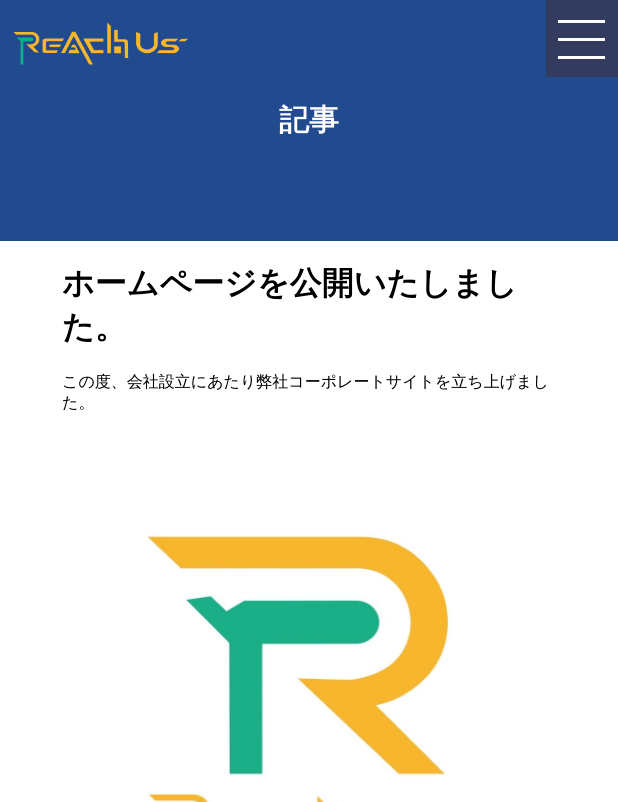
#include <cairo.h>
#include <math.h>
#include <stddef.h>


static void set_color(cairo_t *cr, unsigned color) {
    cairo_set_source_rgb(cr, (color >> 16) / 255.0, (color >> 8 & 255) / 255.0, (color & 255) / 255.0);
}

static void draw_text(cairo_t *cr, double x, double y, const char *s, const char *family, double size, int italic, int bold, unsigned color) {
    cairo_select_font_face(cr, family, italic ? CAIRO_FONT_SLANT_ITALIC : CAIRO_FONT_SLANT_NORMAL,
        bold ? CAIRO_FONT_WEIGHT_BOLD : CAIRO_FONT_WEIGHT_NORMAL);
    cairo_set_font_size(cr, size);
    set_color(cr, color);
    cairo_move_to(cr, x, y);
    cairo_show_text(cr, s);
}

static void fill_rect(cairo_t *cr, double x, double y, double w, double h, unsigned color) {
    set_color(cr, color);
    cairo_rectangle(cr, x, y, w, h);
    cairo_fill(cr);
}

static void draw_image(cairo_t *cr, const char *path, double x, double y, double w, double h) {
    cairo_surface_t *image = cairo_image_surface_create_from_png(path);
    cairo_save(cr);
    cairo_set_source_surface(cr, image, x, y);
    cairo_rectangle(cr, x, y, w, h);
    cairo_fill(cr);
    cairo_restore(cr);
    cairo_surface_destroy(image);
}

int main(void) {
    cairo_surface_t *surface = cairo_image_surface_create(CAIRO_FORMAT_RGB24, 618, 802);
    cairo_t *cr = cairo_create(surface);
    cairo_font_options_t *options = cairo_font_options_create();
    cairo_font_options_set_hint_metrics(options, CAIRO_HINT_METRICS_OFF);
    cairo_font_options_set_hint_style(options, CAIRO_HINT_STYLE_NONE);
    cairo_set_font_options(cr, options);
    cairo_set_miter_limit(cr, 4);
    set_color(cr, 0xFFFFFF);
    cairo_paint(cr);
    fill_rect(cr, 0, 0, 618, 241, 0x224B8F);
    draw_image(cr, "assets/img1.png", 13, 22, 175, 43);
    fill_rect(cr, 546, 0, 72, 77, 0x333C5E);
    fill_rect(cr, 558, 20, 47, 3, 0xFFFFFF);
    fill_rect(cr, 558, 38, 47, 3, 0xFFFFFF);
    fill_rect(cr, 558, 56, 47, 3, 0xFFFFFF);
    draw_text(cr, 279, 130, "記事", "WenQuanYi Zen Hei", 30, 0, 1, 0xFFFFFF);
    draw_text(cr, 62, 294, "ホームページを公開いたしまし", "WenQuanYi Zen Hei", 32, 0, 1, 0x000000);
    draw_text(cr, 62, 338, "た。", "WenQuanYi Zen Hei", 32, 0, 1, 0x000000);
    draw_text(cr, 62, 387, "この度、会社設立にあたり弊社コーポレートサイトを立ち上げまし", "WenQuanYi Zen Hei Medium", 16, 0, 0, 0x000000);
    draw_text(cr, 62, 408, "た。", "WenQuanYi Zen Hei Medium", 16, 0, 0, 0x000000);
    draw_image(cr, "assets/img2.png", 147, 530, 307, 272);
    cairo_surface_write_to_png(surface, "output.png");
    cairo_font_options_destroy(options);
    cairo_destroy(cr);
    cairo_surface_destroy(surface);
    return 0;
}
